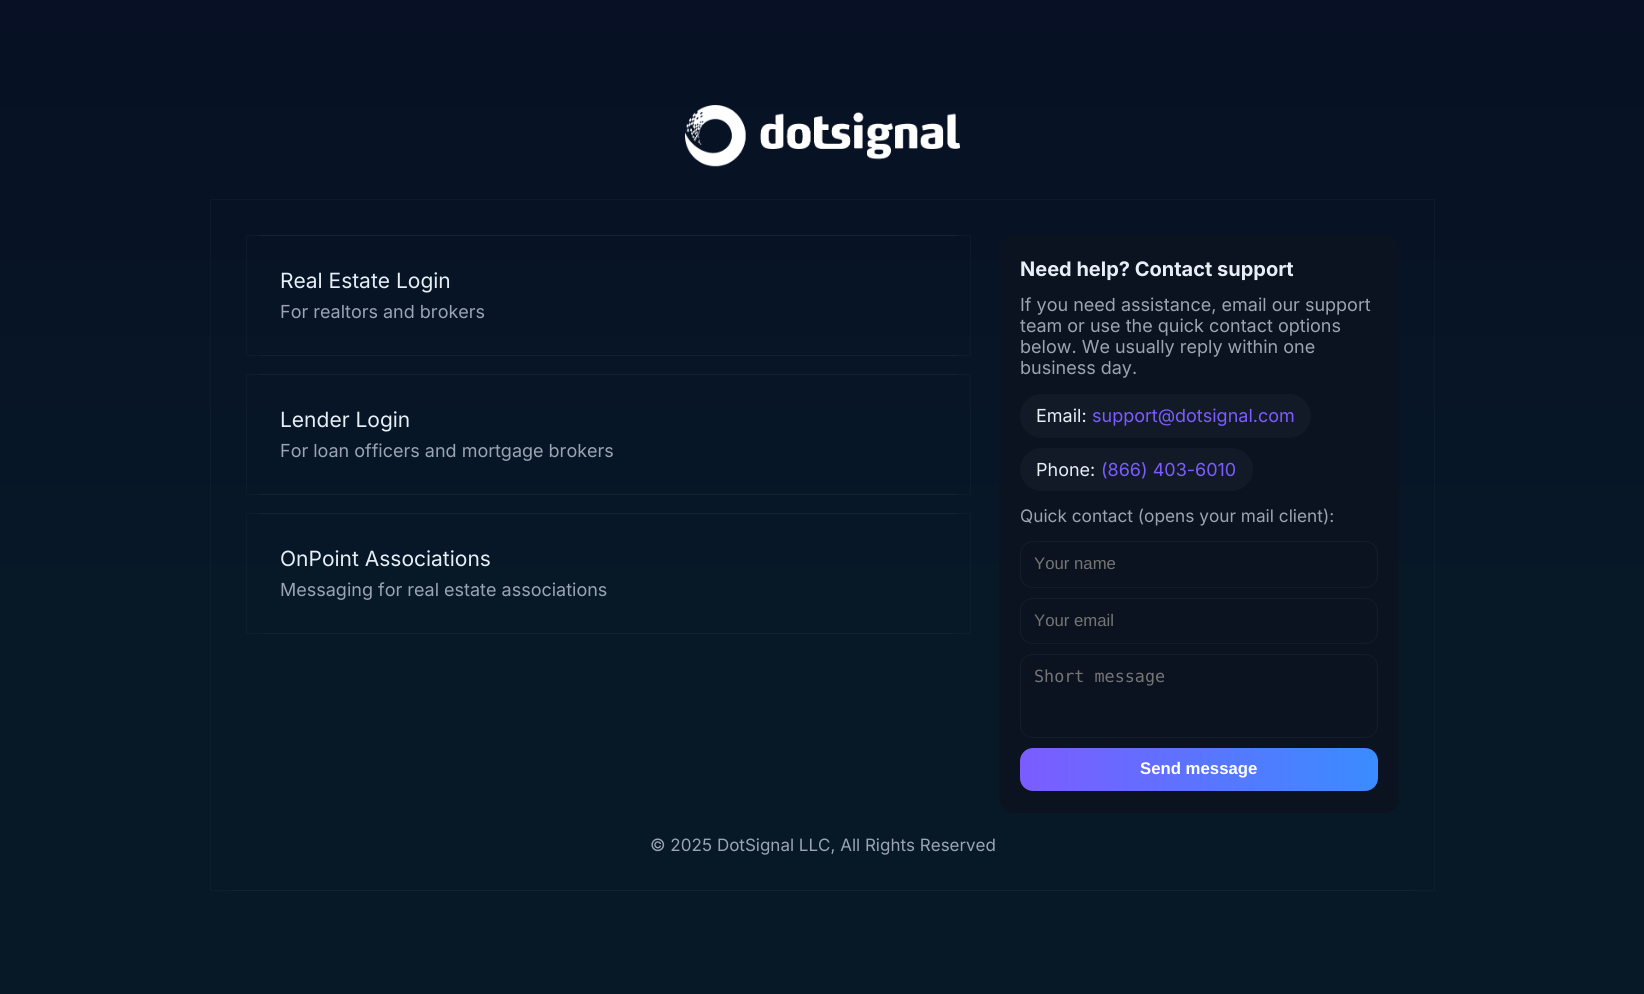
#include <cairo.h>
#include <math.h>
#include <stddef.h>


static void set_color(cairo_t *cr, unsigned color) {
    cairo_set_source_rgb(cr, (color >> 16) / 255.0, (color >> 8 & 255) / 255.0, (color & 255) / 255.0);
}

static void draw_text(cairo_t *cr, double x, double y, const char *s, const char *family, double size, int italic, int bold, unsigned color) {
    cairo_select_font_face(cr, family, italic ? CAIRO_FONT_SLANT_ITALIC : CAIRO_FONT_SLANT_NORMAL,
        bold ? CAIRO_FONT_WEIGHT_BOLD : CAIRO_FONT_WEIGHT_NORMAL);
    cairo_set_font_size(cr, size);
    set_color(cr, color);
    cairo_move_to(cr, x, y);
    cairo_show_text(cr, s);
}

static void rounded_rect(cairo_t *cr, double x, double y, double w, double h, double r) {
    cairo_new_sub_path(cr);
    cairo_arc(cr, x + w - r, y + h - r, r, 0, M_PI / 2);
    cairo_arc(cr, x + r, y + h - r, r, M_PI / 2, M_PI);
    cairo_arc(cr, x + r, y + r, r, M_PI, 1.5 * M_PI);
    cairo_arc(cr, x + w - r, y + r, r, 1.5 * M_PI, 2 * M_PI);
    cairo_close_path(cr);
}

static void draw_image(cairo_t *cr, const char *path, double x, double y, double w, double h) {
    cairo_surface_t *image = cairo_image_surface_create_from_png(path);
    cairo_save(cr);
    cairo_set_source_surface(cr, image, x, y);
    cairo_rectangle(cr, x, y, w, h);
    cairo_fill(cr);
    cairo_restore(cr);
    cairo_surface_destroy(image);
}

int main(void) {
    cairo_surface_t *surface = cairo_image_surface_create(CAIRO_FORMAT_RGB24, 1644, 994);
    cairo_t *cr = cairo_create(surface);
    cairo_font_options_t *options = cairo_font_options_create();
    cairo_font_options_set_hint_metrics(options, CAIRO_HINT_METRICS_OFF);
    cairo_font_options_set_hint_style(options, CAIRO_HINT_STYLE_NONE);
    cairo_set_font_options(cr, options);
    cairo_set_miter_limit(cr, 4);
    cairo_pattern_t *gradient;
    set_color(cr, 0xFFFFFF);
    cairo_paint(cr);
    gradient = cairo_pattern_create_linear(823, 0, 823, 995);
    cairo_pattern_add_color_stop_rgba(gradient, 0, 0.027, 0.063, 0.141, 1);
    cairo_pattern_add_color_stop_rgba(gradient, 0.6, 0.027, 0.094, 0.153, 1);
    cairo_set_source(cr, gradient);
    cairo_pattern_destroy(gradient);
    cairo_rectangle(cr, 0, 0, 1644, 994);
    cairo_fill(cr);
    draw_image(cr, "assets/img1.png", 685, 105, 275, 62);
    cairo_save(cr);
    rounded_rect(cr, 210, 199, 1225, 692, 25);
    cairo_clip(cr);
    gradient = cairo_pattern_create_linear(823, 890, 823, 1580);
    cairo_pattern_add_color_stop_rgba(gradient, 0, 0.047, 0.114, 0.169, 1);
    cairo_pattern_add_color_stop_rgba(gradient, 1, 0.035, 0.102, 0.161, 1);
    cairo_set_source(cr, gradient);
    cairo_pattern_destroy(gradient);
    cairo_rectangle(cr, 228, 890, 1189, 1);
    cairo_fill(cr);
    cairo_restore(cr);
    cairo_rectangle(cr, 210.5, 199.5, 1224, 691);
    cairo_set_source_rgba(cr, 1, 1, 1, 0.03);
    cairo_set_line_width(cr, 1);
    cairo_stroke(cr);
    cairo_save(cr);
    rounded_rect(cr, 246, 235, 725, 121, 18);
    cairo_clip(cr);
    gradient = cairo_pattern_create_linear(609, 117, 609, 236);
    cairo_pattern_add_color_stop_rgba(gradient, 0, 0.055, 0.102, 0.169, 1);
    cairo_pattern_add_color_stop_rgba(gradient, 1, 0.067, 0.11, 0.18, 1);
    cairo_set_source(cr, gradient);
    cairo_pattern_destroy(gradient);
    cairo_rectangle(cr, 258, 235, 701, 1);
    cairo_fill(cr);
    gradient = cairo_pattern_create_linear(609, 355, 609, 474);
    cairo_pattern_add_color_stop_rgba(gradient, 0, 0.055, 0.11, 0.173, 1);
    cairo_pattern_add_color_stop_rgba(gradient, 1, 0.067, 0.118, 0.184, 1);
    cairo_set_source(cr, gradient);
    cairo_pattern_destroy(gradient);
    cairo_rectangle(cr, 258, 355, 701, 1);
    cairo_fill(cr);
    cairo_restore(cr);
    cairo_rectangle(cr, 246.5, 235.5, 724, 120);
    cairo_stroke(cr);
    draw_text(cr, 280, 288, "Real Estate Login", "Inter", 21, 0, 0, 0xE6EEF6);
    draw_text(cr, 280, 318, "For realtors and brokers", "Inter", 18, 0, 0, 0x9AA4B2);
    cairo_save(cr);
    rounded_rect(cr, 246, 374, 725, 121, 18);
    cairo_clip(cr);
    gradient = cairo_pattern_create_linear(609, 256, 609, 375);
    cairo_pattern_add_color_stop_rgba(gradient, 0, 0.051, 0.098, 0.165, 1);
    cairo_pattern_add_color_stop_rgba(gradient, 1, 0.059, 0.11, 0.173, 1);
    cairo_set_source(cr, gradient);
    cairo_pattern_destroy(gradient);
    cairo_rectangle(cr, 258, 374, 701, 1);
    cairo_fill(cr);
    gradient = cairo_pattern_create_linear(609, 494, 609, 613);
    cairo_pattern_add_color_stop_rgba(gradient, 0, 0.051, 0.114, 0.173, 1);
    cairo_pattern_add_color_stop_rgba(gradient, 1, 0.063, 0.122, 0.18, 1);
    cairo_set_source(cr, gradient);
    cairo_pattern_destroy(gradient);
    cairo_rectangle(cr, 258, 494, 701, 1);
    cairo_fill(cr);
    cairo_restore(cr);
    cairo_rectangle(cr, 246.5, 374.5, 724, 120);
    cairo_set_source_rgba(cr, 1, 1, 1, 0.03);
    cairo_stroke(cr);
    draw_text(cr, 280, 427, "Lender Login", "Inter", 21, 0, 0, 0xE6EEF6);
    draw_text(cr, 280, 457, "For loan officers and mortgage brokers", "Inter", 18, 0, 0, 0x9AA4B2);
    cairo_save(cr);
    rounded_rect(cr, 246, 513, 725, 121, 18);
    cairo_clip(cr);
    gradient = cairo_pattern_create_linear(609, 395, 609, 514);
    cairo_pattern_add_color_stop_rgba(gradient, 0, 0.051, 0.106, 0.169, 1);
    cairo_pattern_add_color_stop_rgba(gradient, 1, 0.059, 0.114, 0.176, 1);
    cairo_set_source(cr, gradient);
    cairo_pattern_destroy(gradient);
    cairo_rectangle(cr, 258, 513, 701, 1);
    cairo_fill(cr);
    gradient = cairo_pattern_create_linear(609, 632, 609, 751);
    cairo_pattern_add_color_stop_rgba(gradient, 0, 0.047, 0.106, 0.165, 1);
    cairo_pattern_add_color_stop_rgba(gradient, 1, 0.055, 0.118, 0.173, 1);
    cairo_set_source(cr, gradient);
    cairo_pattern_destroy(gradient);
    cairo_rectangle(cr, 258, 633, 701, 1);
    cairo_fill(cr);
    cairo_restore(cr);
    cairo_rectangle(cr, 246.5, 513.5, 724, 120);
    cairo_set_source_rgba(cr, 1, 1, 1, 0.03);
    cairo_stroke(cr);
    draw_text(cr, 280, 566, "OnPoint Associations", "Inter", 21, 0, 0, 0xE6EEF6);
    draw_text(cr, 280, 596, "Messaging for real estate associations", "Inter", 18, 0, 0, 0x9AA4B2);
    set_color(cr, 0x0B1220);
    rounded_rect(cr, 999, 235, 400, 578, 15);
    cairo_fill(cr);
    draw_text(cr, 1020, 276, "Need help? Contact support", "Inter", 20, 0, 1, 0xE6EEF6);
    draw_text(cr, 1020, 311, "If you need assistance, email our support", "Inter", 18, 0, 0, 0x9AA4B2);
    draw_text(cr, 1020, 332, "team or use the quick contact options", "Inter", 18, 0, 0, 0x9AA4B2);
    draw_text(cr, 1020, 353, "below. We usually reply within one", "Inter", 18, 0, 0, 0x9AA4B2);
    draw_text(cr, 1020, 374, "business day.", "Inter", 18, 0, 0, 0x9AA4B2);
    set_color(cr, 0x121927);
    rounded_rect(cr, 1020, 394, 291, 44, 22);
    cairo_fill(cr);
    draw_text(cr, 1036, 422, "Email:", "Inter", 18, 0, 0, 0xE6EEF6);
    draw_text(cr, 1092, 422, "support@dotsignal.com", "Inter", 18, 0, 0, 0x7C5CFF);
    set_color(cr, 0x121927);
    rounded_rect(cr, 1020, 448, 233, 43, 21.5);
    cairo_fill(cr);
    draw_text(cr, 1036, 476, "Phone:", "Inter", 18, 0, 0, 0xE6EEF6);
    draw_text(cr, 1101, 476, "(866) 403-6010", "Inter", 18, 0, 0, 0x7C5CFF);
    draw_text(cr, 1020, 522, "Quick contact (opens your mail client):", "Inter", 17.25, 0, 0, 0x9AA4B2);
    rounded_rect(cr, 1020.5, 541.5, 357, 46, 12.5);
    set_color(cr, 0x151B29);
    cairo_stroke(cr);
    draw_text(cr, 1034, 569, "Your name", "Liberation Sans", 16.75, 0, 0, 0x757575);
    rounded_rect(cr, 1020.5, 598.5, 357, 45, 12.5);
    set_color(cr, 0x151B29);
    cairo_stroke(cr);
    draw_text(cr, 1034, 626, "Your email", "Liberation Sans", 16.75, 0, 0, 0x757575);
    rounded_rect(cr, 1020.5, 654.5, 357, 83, 12.5);
    set_color(cr, 0x151B29);
    cairo_stroke(cr);
    draw_text(cr, 1034, 682, "Short message", "DejaVu Sans Mono", 16.75, 0, 0, 0x757575);
    gradient = cairo_pattern_create_linear(1020, 769, 1378, 769);
    cairo_pattern_add_color_stop_rgba(gradient, 0, 0.486, 0.361, 1, 1);
    cairo_pattern_add_color_stop_rgba(gradient, 1, 0.227, 0.549, 1, 1);
    cairo_set_source(cr, gradient);
    cairo_pattern_destroy(gradient);
    rounded_rect(cr, 1020, 748, 358, 43, 13);
    cairo_fill(cr);
    draw_text(cr, 1140, 774, "Send message", "Liberation Sans", 16.75, 0, 1, 0xFFFFFF);
    draw_text(cr, 650, 851, "© 2025 DotSignal LLC, All Rights Reserved", "Inter", 17, 0, 0, 0x9AA4B2);
    cairo_surface_write_to_png(surface, "output.png");
    cairo_font_options_destroy(options);
    cairo_destroy(cr);
    cairo_surface_destroy(surface);
    return 0;
}
